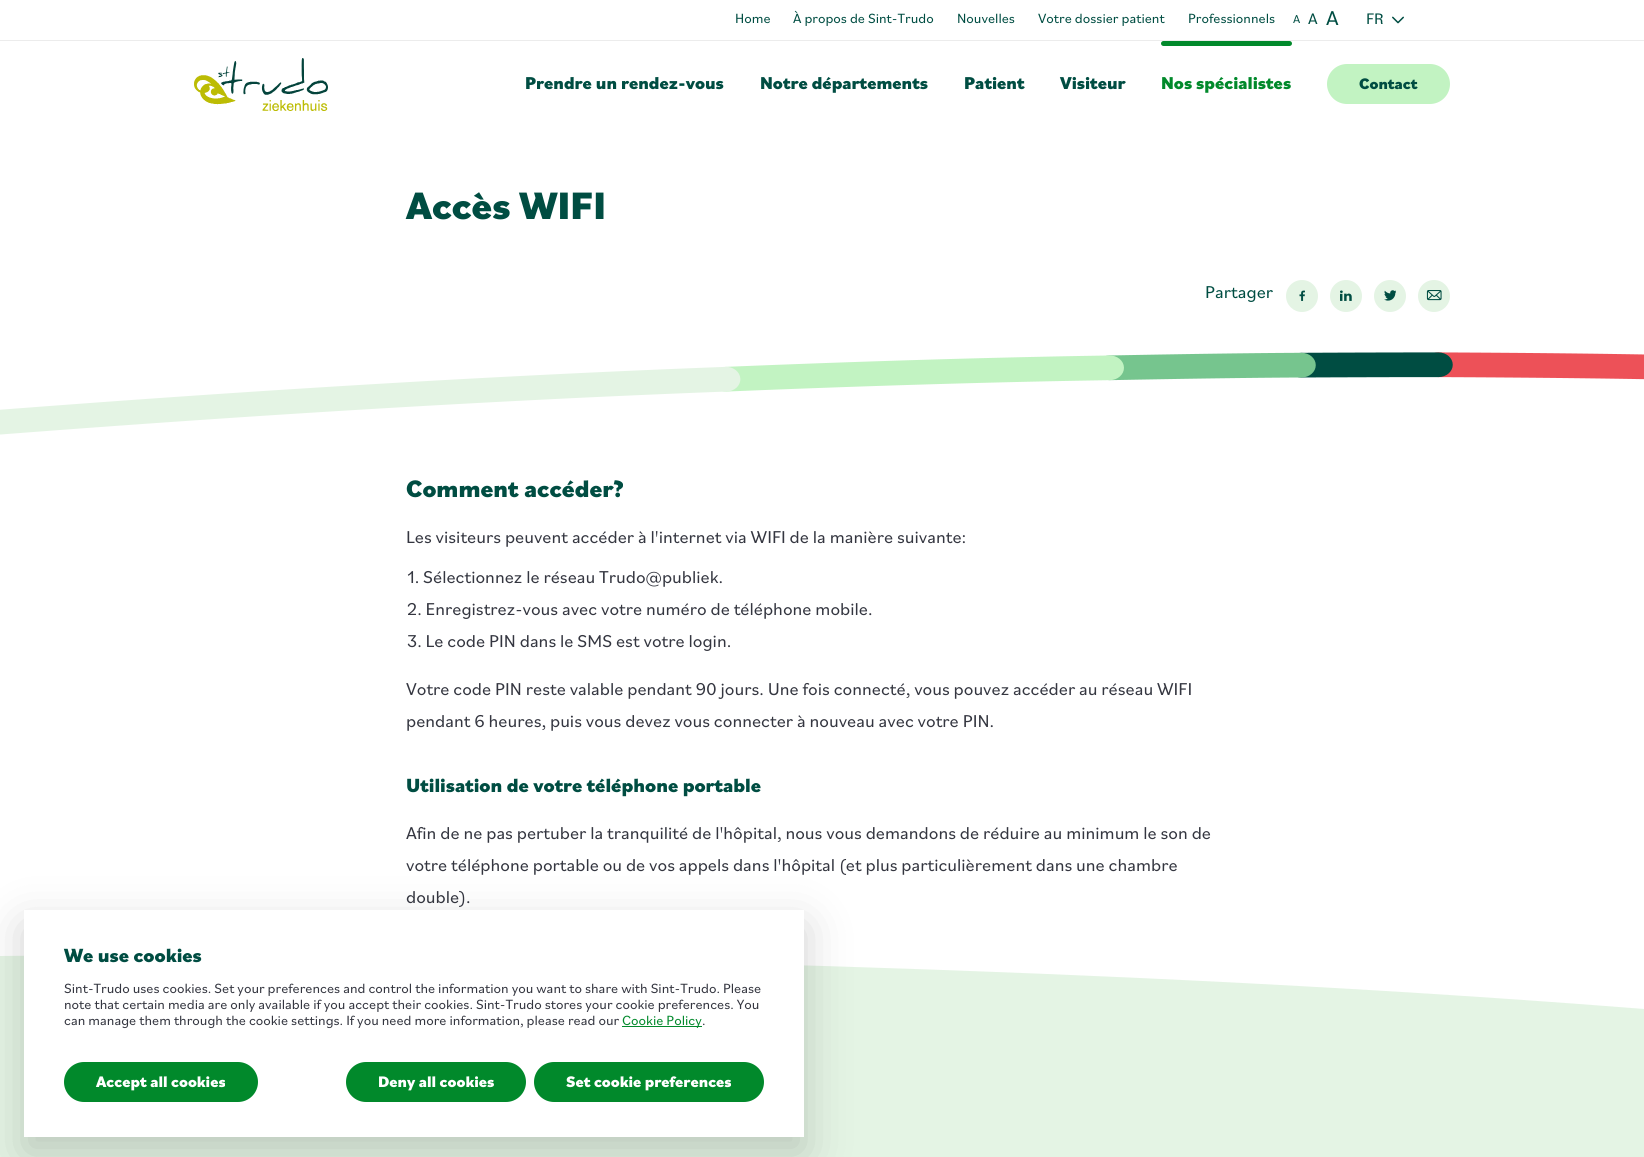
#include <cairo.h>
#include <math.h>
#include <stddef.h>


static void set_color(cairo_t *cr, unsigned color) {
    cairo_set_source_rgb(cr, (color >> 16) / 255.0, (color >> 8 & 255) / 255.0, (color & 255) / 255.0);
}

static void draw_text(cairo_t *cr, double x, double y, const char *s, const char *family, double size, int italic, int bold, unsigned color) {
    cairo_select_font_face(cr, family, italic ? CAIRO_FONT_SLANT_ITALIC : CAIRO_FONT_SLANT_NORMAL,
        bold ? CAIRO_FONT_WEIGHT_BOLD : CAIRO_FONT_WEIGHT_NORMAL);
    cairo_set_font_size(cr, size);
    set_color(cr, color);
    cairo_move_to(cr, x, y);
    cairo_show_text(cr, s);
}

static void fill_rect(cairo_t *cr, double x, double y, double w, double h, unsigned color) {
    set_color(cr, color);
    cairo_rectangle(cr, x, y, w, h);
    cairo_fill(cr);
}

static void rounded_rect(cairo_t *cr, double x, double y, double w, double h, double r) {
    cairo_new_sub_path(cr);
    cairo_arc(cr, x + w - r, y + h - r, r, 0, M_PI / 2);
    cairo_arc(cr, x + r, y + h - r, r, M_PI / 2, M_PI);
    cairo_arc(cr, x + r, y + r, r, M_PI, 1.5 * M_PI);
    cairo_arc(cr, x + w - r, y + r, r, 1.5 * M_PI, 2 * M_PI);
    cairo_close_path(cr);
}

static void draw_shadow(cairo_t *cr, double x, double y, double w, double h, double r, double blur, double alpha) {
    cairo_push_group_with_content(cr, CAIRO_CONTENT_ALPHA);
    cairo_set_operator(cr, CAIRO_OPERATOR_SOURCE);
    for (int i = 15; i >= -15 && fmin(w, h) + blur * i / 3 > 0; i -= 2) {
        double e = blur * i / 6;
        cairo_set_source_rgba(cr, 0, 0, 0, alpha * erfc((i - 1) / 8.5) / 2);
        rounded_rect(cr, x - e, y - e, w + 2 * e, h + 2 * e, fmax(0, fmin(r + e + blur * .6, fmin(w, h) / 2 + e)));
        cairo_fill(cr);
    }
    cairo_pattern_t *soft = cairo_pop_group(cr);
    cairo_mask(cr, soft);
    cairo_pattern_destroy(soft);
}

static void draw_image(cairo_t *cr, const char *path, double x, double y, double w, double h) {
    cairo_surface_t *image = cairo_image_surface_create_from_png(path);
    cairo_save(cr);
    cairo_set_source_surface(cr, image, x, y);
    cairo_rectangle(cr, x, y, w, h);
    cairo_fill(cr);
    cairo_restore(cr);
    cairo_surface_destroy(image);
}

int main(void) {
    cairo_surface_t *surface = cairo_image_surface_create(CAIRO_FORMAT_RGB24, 1644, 1157);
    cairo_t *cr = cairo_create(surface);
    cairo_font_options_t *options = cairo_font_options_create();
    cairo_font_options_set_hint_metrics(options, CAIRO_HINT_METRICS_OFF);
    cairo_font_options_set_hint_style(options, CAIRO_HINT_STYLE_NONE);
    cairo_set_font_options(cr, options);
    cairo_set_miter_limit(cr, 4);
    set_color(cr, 0xFFFFFF);
    cairo_paint(cr);
    fill_rect(cr, 0, 40, 1644, 1, 0xECECEC);
    draw_text(cr, 735, 23, "Home", "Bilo", 14, 0, 0, 0x004D42);
    draw_text(cr, 793, 23, "À propos de Sint-Trudo", "Bilo", 14, 0, 0, 0x004D42);
    draw_text(cr, 957, 23, "Nouvelles", "Bilo", 14, 0, 0, 0x004D42);
    draw_text(cr, 1038, 23, "Votre dossier patient", "Bilo", 14, 0, 0, 0x004D42);
    draw_text(cr, 1188, 23, "Professionnels", "Bilo", 14, 0, 0, 0x004D42);
    draw_text(cr, 1293, 23, "A", "Bilo", 12, 0, 0, 0x004D42);
    draw_text(cr, 1308, 24, "A", "Bilo", 16, 0, 0, 0x004D42);
    draw_text(cr, 1326, 25, "A", "Bilo", 21, 0, 0, 0x004D42);
    draw_image(cr, "assets/img1.png", 1392, 16, 12, 8);
    draw_text(cr, 1366, 24, "FR", "Bilo", 16, 0, 0, 0x004D42);
    draw_image(cr, "assets/img2.png", 194, 58, 134, 53);
    draw_text(cr, 525, 89, "Prendre un rendez-vous", "Bilo ExtraBold", 18, 0, 0, 0x004D42);
    draw_text(cr, 760, 89, "Notre départements", "Bilo ExtraBold", 18, 0, 0, 0x004D42);
    draw_text(cr, 964, 89, "Patient", "Bilo ExtraBold", 18, 0, 0, 0x004D42);
    draw_text(cr, 1060, 89, "Visiteur", "Bilo ExtraBold", 18, 0, 0, 0x004D42);
    set_color(cr, 0x01892B);
    rounded_rect(cr, 1161, 41, 131, 5, 2.5);
    cairo_fill(cr);
    draw_text(cr, 1161, 89, "Nos spécialistes", "Bilo ExtraBold", 18, 0, 0, 0x01892B);
    set_color(cr, 0xC2F3C2);
    rounded_rect(cr, 1327, 64, 123, 40, 20);
    cairo_fill(cr);
    draw_text(cr, 1359, 89, "Contact", "Bilo ExtraBold", 16, 0, 0, 0x004D42);
    draw_text(cr, 406, 219, "Accès WIFI", "Bilo ExtraBold", 40, 0, 0, 0x004D42);
    draw_text(cr, 1205, 298, "Partager", "Bilo", 18, 0, 0, 0x004D42);
    set_color(cr, 0xE4F4E4);
    cairo_new_path(cr);
    cairo_arc(cr, 1302, 296, 16, 0, 2 * M_PI);
    cairo_fill(cr);
    draw_image(cr, "assets/img3.png", 1299, 290, 6, 11);
    cairo_arc(cr, 1346, 296, 16, 0, 2 * M_PI);
    cairo_fill(cr);
    draw_image(cr, "assets/img4.png", 1340, 290, 12, 11);
    cairo_arc(cr, 1390, 296, 16, 0, 2 * M_PI);
    cairo_fill(cr);
    draw_image(cr, "assets/img5.png", 1384, 290, 12, 11);
    cairo_arc(cr, 1434, 296, 16, 0, 2 * M_PI);
    cairo_fill(cr);
    draw_image(cr, "assets/img6.png", 1426, 290, 16, 11);
    draw_image(cr, "assets/img7.png", 0, 352, 1644, 83);
    draw_text(cr, 406, 497, "Comment accéder?", "Bilo ExtraBold", 25, 0, 0, 0x004D42);
    draw_text(cr, 406, 543, "Les visiteurs peuvent accéder à l'internet via WIFI de la manière suivante:", "Bilo", 18, 0, 0, 0x343640);
    draw_text(cr, 407, 583, "1. Sélectionnez le réseau Trudo@publiek.", "Bilo", 18, 0, 0, 0x343640);
    draw_text(cr, 407, 615, "2. Enregistrez-vous avec votre numéro de téléphone mobile.", "Bilo", 18, 0, 0, 0x343640);
    draw_text(cr, 407, 647, "3. Le code PIN dans le SMS est votre login.", "Bilo", 18, 0, 0, 0x343640);
    draw_text(cr, 406, 695, "Votre code PIN reste valable pendant 90 jours. Une fois connecté, vous pouvez accéder au réseau WIFI", "Bilo", 18, 0, 0, 0x343640);
    draw_text(cr, 406, 727, "pendant 6 heures, puis vous devez vous connecter à nouveau avec votre PIN.", "Bilo", 18, 0, 0, 0x343640);
    draw_text(cr, 406, 792, "Utilisation de votre téléphone portable", "Bilo ExtraBold", 20, 0, 0, 0x004D42);
    draw_text(cr, 406, 839, "Afin de ne pas pertuber la tranquilité de l'hôpital, nous vous demandons de réduire au minimum le son de", "Bilo", 18, 0, 0, 0x343640);
    draw_text(cr, 406, 871, "votre téléphone portable ou de vos appels dans l'hôpital (et plus particulièrement dans une chambre", "Bilo", 18, 0, 0, 0x343640);
    draw_text(cr, 406, 903, "double).", "Bilo", 18, 0, 0, 0x343640);
    set_color(cr, 0xE4F4E4);
    cairo_set_fill_rule(cr, CAIRO_FILL_RULE_EVEN_ODD);
    cairo_new_path(cr);
    cairo_move_to(cr, 1644, 1009);
    cairo_curve_to(cr, 1392, 989, 1118, 975, 823, 966);
    cairo_curve_to(cr, 528, 957, 254, 953, 0, 956);
    cairo_line_to(cr, 0, 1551);
    cairo_line_to(cr, 1644, 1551);
    cairo_close_path(cr);
    cairo_fill(cr);
    set_color(cr, 0x000000);
    draw_shadow(cr, 24, 926, 780, 227, 0, 23, 0.18);
    fill_rect(cr, 24, 910, 780, 227, 0xFFFFFF);
    draw_text(cr, 64, 962, "We use cookies", "Bilo ExtraBold", 20, 0, 0, 0x004D42);
    draw_text(cr, 64, 993, "Sint-Trudo uses cookies. Set your preferences and control the information you want to share with Sint-Trudo. Please", "Bilo", 14, 0, 0, 0x343640);
    draw_text(cr, 64, 1009, "note that certain media are only available if you accept their cookies. Sint-Trudo stores your cookie preferences. You", "Bilo", 14, 0, 0, 0x343640);
    draw_text(cr, 64, 1025, "can manage them through the cookie settings. If you need more information, please read our", "Bilo", 14, 0, 0, 0x343640);
    fill_rect(cr, 622, 1026, 80, 1, 0x01892B);
    draw_text(cr, 622, 1025, "Cookie Policy", "Bilo", 14, 0, 0, 0x01892B);
    draw_text(cr, 702, 1025, ".", "Bilo", 14, 0, 0, 0x343640);
    set_color(cr, 0x01892B);
    rounded_rect(cr, 64, 1062, 194, 40, 20);
    cairo_fill(cr);
    draw_text(cr, 96, 1087, "Accept all cookies", "Bilo ExtraBold", 16, 0, 0, 0xFFFFFF);
    set_color(cr, 0x01892B);
    rounded_rect(cr, 346, 1062, 180, 40, 20);
    cairo_fill(cr);
    draw_text(cr, 378, 1087, "Deny all cookies", "Bilo ExtraBold", 16, 0, 0, 0xFFFFFF);
    set_color(cr, 0x01892B);
    rounded_rect(cr, 534, 1062, 230, 40, 20);
    cairo_fill(cr);
    draw_text(cr, 566, 1087, "Set cookie preferences", "Bilo ExtraBold", 16, 0, 0, 0xFFFFFF);
    cairo_surface_write_to_png(surface, "output.png");
    cairo_font_options_destroy(options);
    cairo_destroy(cr);
    cairo_surface_destroy(surface);
    return 0;
}
